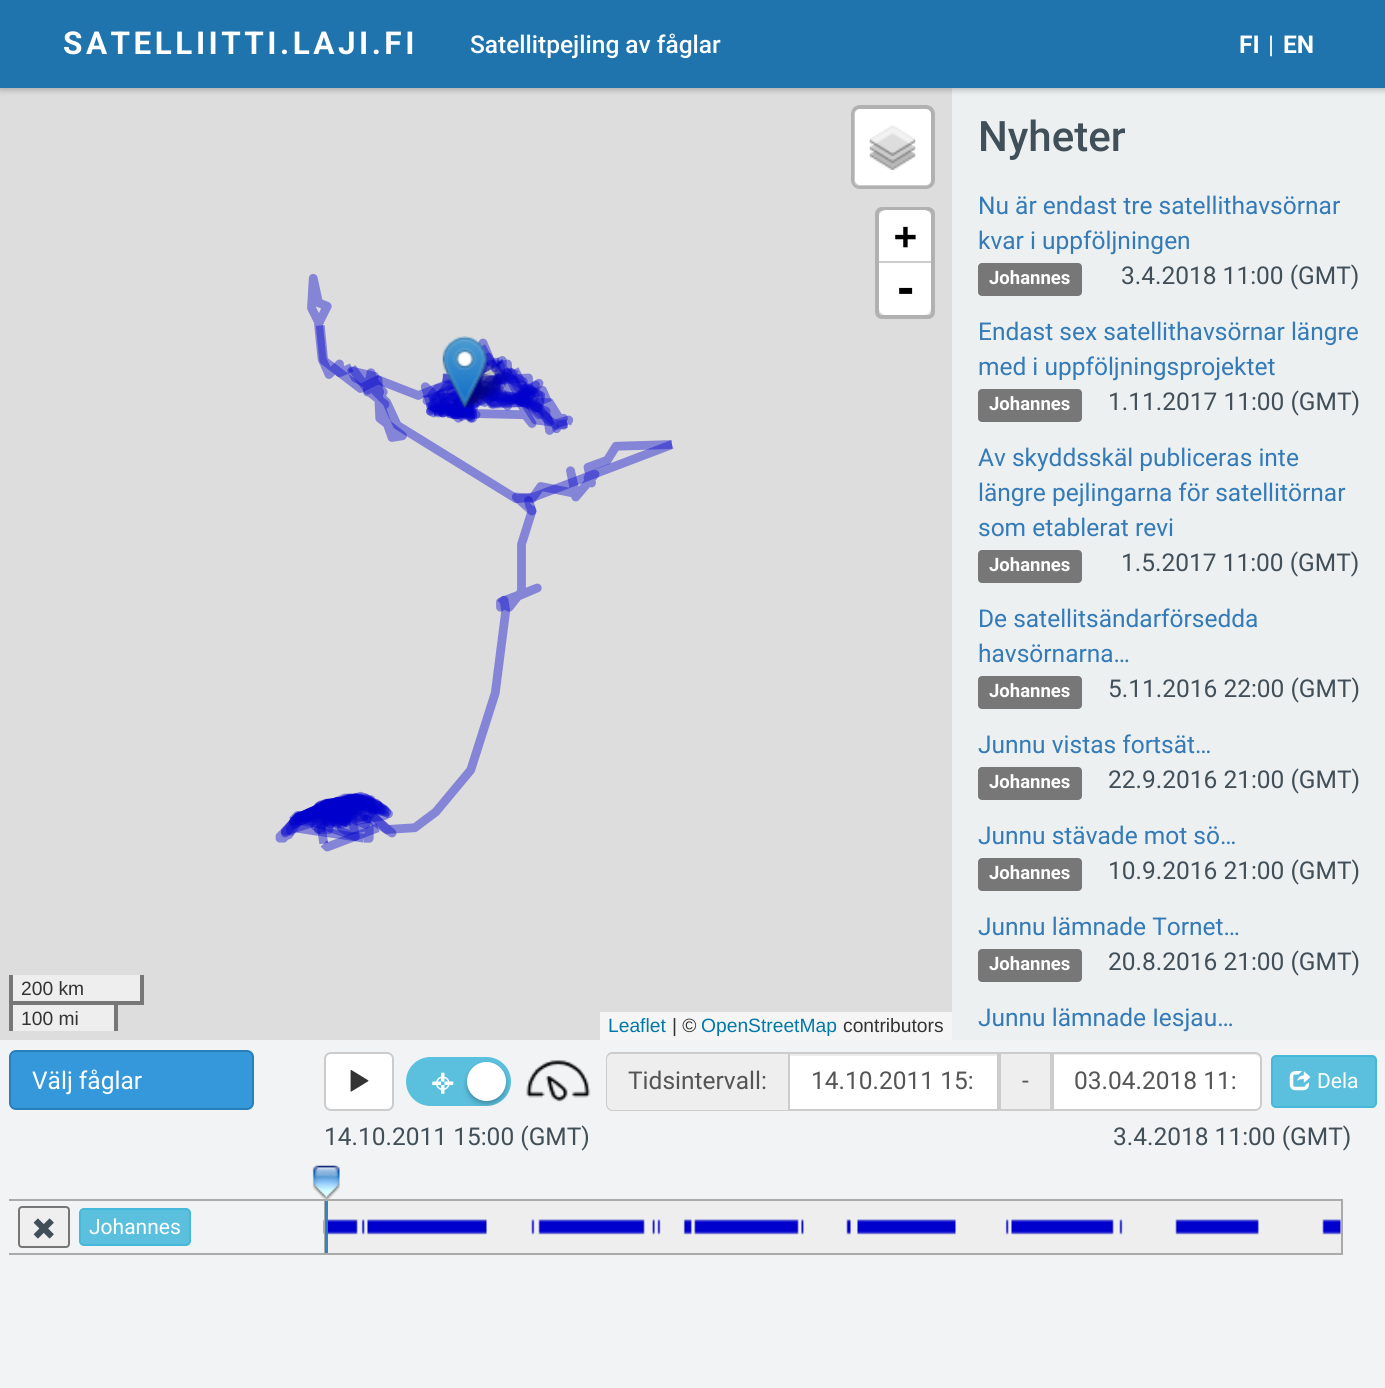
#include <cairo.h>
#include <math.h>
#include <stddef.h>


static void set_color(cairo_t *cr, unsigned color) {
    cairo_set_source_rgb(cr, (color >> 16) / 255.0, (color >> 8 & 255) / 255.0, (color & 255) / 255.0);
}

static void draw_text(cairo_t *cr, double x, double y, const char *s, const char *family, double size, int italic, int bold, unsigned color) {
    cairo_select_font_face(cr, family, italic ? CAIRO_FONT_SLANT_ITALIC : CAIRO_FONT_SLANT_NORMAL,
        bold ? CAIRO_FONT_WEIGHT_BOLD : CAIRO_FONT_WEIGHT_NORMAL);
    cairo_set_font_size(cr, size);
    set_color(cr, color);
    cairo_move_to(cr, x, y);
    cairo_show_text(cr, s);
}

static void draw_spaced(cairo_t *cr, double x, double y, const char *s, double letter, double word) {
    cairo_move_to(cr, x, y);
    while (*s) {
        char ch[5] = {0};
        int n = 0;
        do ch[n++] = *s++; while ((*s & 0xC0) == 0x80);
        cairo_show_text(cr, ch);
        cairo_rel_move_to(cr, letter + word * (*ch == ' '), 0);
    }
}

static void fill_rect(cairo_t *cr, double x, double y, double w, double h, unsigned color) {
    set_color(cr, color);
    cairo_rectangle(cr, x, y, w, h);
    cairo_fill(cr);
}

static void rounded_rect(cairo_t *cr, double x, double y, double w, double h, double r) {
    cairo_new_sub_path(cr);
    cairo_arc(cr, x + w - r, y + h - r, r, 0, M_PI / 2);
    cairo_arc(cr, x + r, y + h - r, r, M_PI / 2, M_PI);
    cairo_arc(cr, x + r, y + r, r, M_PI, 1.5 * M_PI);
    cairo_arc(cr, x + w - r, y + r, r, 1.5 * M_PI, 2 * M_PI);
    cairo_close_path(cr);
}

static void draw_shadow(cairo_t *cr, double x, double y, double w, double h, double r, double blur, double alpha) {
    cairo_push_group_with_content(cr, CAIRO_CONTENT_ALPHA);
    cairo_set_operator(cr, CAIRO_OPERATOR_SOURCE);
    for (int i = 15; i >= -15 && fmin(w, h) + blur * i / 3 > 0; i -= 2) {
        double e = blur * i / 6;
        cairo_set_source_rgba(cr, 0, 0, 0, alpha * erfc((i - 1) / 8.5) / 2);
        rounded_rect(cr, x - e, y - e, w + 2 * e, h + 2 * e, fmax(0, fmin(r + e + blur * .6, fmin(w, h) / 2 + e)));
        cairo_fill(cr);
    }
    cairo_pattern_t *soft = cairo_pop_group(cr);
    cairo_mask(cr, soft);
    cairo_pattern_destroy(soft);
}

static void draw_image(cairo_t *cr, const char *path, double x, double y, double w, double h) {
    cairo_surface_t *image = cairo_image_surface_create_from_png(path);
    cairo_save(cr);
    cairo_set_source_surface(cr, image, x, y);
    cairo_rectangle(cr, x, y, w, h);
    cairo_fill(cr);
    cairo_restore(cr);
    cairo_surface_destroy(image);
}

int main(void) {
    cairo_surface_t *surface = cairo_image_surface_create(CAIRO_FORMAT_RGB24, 1385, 1388);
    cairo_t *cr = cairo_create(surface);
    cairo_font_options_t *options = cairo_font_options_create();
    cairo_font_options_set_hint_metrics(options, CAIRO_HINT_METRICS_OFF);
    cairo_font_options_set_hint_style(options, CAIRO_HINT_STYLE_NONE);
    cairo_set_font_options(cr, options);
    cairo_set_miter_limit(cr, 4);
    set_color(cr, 0xF1F3F4);
    cairo_paint(cr);
    fill_rect(cr, 952, 88, 433, 952, 0xECF0F1);
    fill_rect(cr, 0, 88, 952, 952, 0xDDDDDD);
    set_color(cr, 0x000000);
    draw_shadow(cr, 0, 2, 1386, 87, 0, 3.5, 0.3);
    fill_rect(cr, 0, 0, 1385, 88, 0x1F74AD);
    cairo_select_font_face(cr, "Roboto", CAIRO_FONT_SLANT_NORMAL, CAIRO_FONT_WEIGHT_BOLD);
    cairo_set_font_size(cr, 31.5);
    set_color(cr, 0xFFFFFF);
    draw_spaced(cr, 63, 54, "SATELLIITTI.LAJI.FI", 3.5, 0);
    draw_text(cr, 470, 53, "Satellitpejling av fåglar", "Roboto Medium", 24.5, 0, 0, 0xFFFFFF);
    draw_text(cr, 1239, 53, "FI", "Roboto", 24.5, 0, 1, 0xFFFFFF);
    draw_text(cr, 1268, 53, "|", "Roboto", 24.5, 0, 0, 0xFFFFFF);
    draw_text(cr, 1283, 53, "EN", "Roboto", 24.5, 0, 1, 0xFFFFFF);
    draw_text(cr, 978, 151, "Nyheter", "Roboto Medium", 42, 0, 0, 0x414F58);
    draw_text(cr, 978, 214, "Nu är endast tre satellithavsörnar", "Roboto", 24.5, 0, 0, 0x337AB7);
    draw_text(cr, 978, 249, "kvar i uppföljningen", "Roboto", 24.5, 0, 0, 0x337AB7);
    set_color(cr, 0x777777);
    rounded_rect(cr, 978, 263, 104, 33, 4);
    cairo_fill(cr);
    draw_text(cr, 989, 284, "Johannes", "Roboto", 18.5, 0, 1, 0xFFFFFF);
    draw_text(cr, 1121, 284, "3.4.2018 11:00 (GMT)", "Roboto", 24.5, 0, 0, 0x414F58);
    draw_text(cr, 978, 340, "Endast sex satellithavsörnar längre", "Roboto", 24.5, 0, 0, 0x337AB7);
    draw_text(cr, 978, 375, "med i uppföljningsprojektet", "Roboto", 24.5, 0, 0, 0x337AB7);
    set_color(cr, 0x777777);
    rounded_rect(cr, 978, 389, 104, 33, 4);
    cairo_fill(cr);
    draw_text(cr, 989, 410, "Johannes", "Roboto", 18.5, 0, 1, 0xFFFFFF);
    draw_text(cr, 1108, 410, "1.11.2017 11:00 (GMT)", "Roboto", 24.5, 0, 0, 0x414F58);
    draw_text(cr, 978, 466, "Av skyddsskäl publiceras inte", "Roboto", 24.5, 0, 0, 0x337AB7);
    draw_text(cr, 978, 501, "längre pejlingarna för satellitörnar", "Roboto", 24.5, 0, 0, 0x337AB7);
    draw_text(cr, 978, 536, "som etablerat revi", "Roboto", 24.5, 0, 0, 0x337AB7);
    set_color(cr, 0x777777);
    rounded_rect(cr, 978, 550, 104, 33, 4);
    cairo_fill(cr);
    draw_text(cr, 989, 571, "Johannes", "Roboto", 18.5, 0, 1, 0xFFFFFF);
    draw_text(cr, 1121, 571, "1.5.2017 11:00 (GMT)", "Roboto", 24.5, 0, 0, 0x414F58);
    draw_text(cr, 978, 627, "De satellitsändarförsedda", "Roboto", 24.5, 0, 0, 0x337AB7);
    draw_text(cr, 978, 662, "havsörnarna…", "Roboto", 24.5, 0, 0, 0x337AB7);
    set_color(cr, 0x777777);
    rounded_rect(cr, 978, 676, 104, 33, 4);
    cairo_fill(cr);
    draw_text(cr, 989, 697, "Johannes", "Roboto", 18.5, 0, 1, 0xFFFFFF);
    draw_text(cr, 1108, 697, "5.11.2016 22:00 (GMT)", "Roboto", 24.5, 0, 0, 0x414F58);
    draw_text(cr, 978, 753, "Junnu vistas fortsät…", "Roboto", 24.5, 0, 0, 0x337AB7);
    set_color(cr, 0x777777);
    rounded_rect(cr, 978, 767, 104, 33, 4);
    cairo_fill(cr);
    draw_text(cr, 989, 788, "Johannes", "Roboto", 18.5, 0, 1, 0xFFFFFF);
    draw_text(cr, 1108, 788, "22.9.2016 21:00 (GMT)", "Roboto", 24.5, 0, 0, 0x414F58);
    draw_text(cr, 978, 844, "Junnu stävade mot sö…", "Roboto", 24.5, 0, 0, 0x337AB7);
    set_color(cr, 0x777777);
    rounded_rect(cr, 978, 858, 104, 33, 4);
    cairo_fill(cr);
    draw_text(cr, 989, 879, "Johannes", "Roboto", 18.5, 0, 1, 0xFFFFFF);
    draw_text(cr, 1108, 879, "10.9.2016 21:00 (GMT)", "Roboto", 24.5, 0, 0, 0x414F58);
    draw_text(cr, 978, 935, "Junnu lämnade Tornet…", "Roboto", 24.5, 0, 0, 0x337AB7);
    set_color(cr, 0x777777);
    rounded_rect(cr, 978, 949, 104, 33, 4);
    cairo_fill(cr);
    draw_text(cr, 989, 970, "Johannes", "Roboto", 18.5, 0, 1, 0xFFFFFF);
    draw_text(cr, 1108, 970, "20.8.2016 21:00 (GMT)", "Roboto", 24.5, 0, 0, 0x414F58);
    draw_text(cr, 978, 1026, "Junnu lämnade Iesjau…", "Roboto", 24.5, 0, 0, 0x337AB7);
    fill_rect(cr, 13, 1005, 101, 26, 0xEEEEEE);
    set_color(cr, 0xFFFFFF);
    rounded_rect(cr, 854, 109, 77, 77, 5);
    cairo_fill(cr);
    rounded_rect(cr, 853, 107, 80, 80, 7);
    cairo_set_source_rgba(cr, 0, 0, 0, 0.2);
    cairo_set_line_width(cr, 4);
    cairo_stroke(cr);
    draw_image(cr, "assets/img1.png", 869, 125, 47, 45);
    rounded_rect(cr, 877, 209, 56, 108, 5);
    set_color(cr, 0xB1B1B1);
    cairo_stroke(cr);
    set_color(cr, 0xFFFFFF);
    cairo_new_path(cr);
    cairo_move_to(cr, 886, 210);
    cairo_line_to(cr, 924, 210);
    cairo_curve_to(cr, 928, 210, 931, 213, 931, 217);
    cairo_line_to(cr, 931, 263);
    cairo_line_to(cr, 879, 263);
    cairo_line_to(cr, 879, 217);
    cairo_curve_to(cr, 879, 213, 882, 210, 886, 210);
    cairo_close_path(cr);
    cairo_fill(cr);
    fill_rect(cr, 879, 261, 52, 2, 0xCCCCCC);
    draw_text(cr, 894, 249, "+", "DejaVu Sans Mono", 38, 0, 1, 0x000000);
    set_color(cr, 0xFFFFFF);
    cairo_new_path(cr);
    cairo_move_to(cr, 879, 263);
    cairo_line_to(cr, 931, 263);
    cairo_line_to(cr, 931, 308);
    cairo_curve_to(cr, 931, 312, 928, 315, 924, 315);
    cairo_line_to(cr, 886, 315);
    cairo_curve_to(cr, 882, 315, 879, 312, 879, 308);
    cairo_close_path(cr);
    cairo_fill(cr);
    draw_text(cr, 893, 303, "-", "DejaVu Sans Mono", 42, 0, 1, 0x000000);
    fill_rect(cr, 13, 975, 127, 26, 0xEEEEEE);
    fill_rect(cr, 140, 975, 4, 30, 0x777777);
    fill_rect(cr, 118, 1001, 26, 4, 0x777777);
    fill_rect(cr, 9, 975, 4, 30, 0x777777);
    draw_text(cr, 21, 995, "200 km", "Liberation Sans", 19.25, 0, 0, 0x333333);
    fill_rect(cr, 9, 1001, 108, 4, 0x777777);
    fill_rect(cr, 114, 1001, 4, 30, 0x777777);
    fill_rect(cr, 9, 1001, 4, 30, 0x777777);
    draw_text(cr, 21, 1025, "100 mi", "Liberation Sans", 19.25, 0, 0, 0x333333);
    fill_rect(cr, 600, 1012, 352, 28, 0xF5F5F5);
    draw_text(cr, 608, 1032, "Leaflet", "Liberation Sans", 19.25, 0, 0, 0x0078A8);
    draw_text(cr, 672, 1032, "| ©", "Liberation Sans", 19.25, 0, 0, 0x333333);
    draw_text(cr, 701, 1032, "OpenStreetMap", "Liberation Sans", 19.25, 0, 0, 0x0078A8);
    draw_text(cr, 843, 1032, "contributors", "Liberation Sans", 19.25, 0, 0, 0x333333);
    draw_image(cr, "assets/img2.png", 275, 273, 399, 579);
    draw_image(cr, "assets/img4.png", 458, 358, 52, 50);
    draw_image(cr, "assets/img3.png", 442, 336, 45, 72);
    set_color(cr, 0x3498DB);
    rounded_rect(cr, 10, 1051, 243, 58, 6);
    cairo_fill_preserve(cr);
    set_color(cr, 0x2980B9);
    cairo_set_line_width(cr, 2);
    cairo_stroke(cr);
    draw_text(cr, 32, 1089, "Välj fåglar", "Roboto", 24.5, 0, 0, 0xFFFFFF);
    rounded_rect(cr, 325, 1053, 68, 57, 6);
    cairo_fill_preserve(cr);
    set_color(cr, 0xCCCCCC);
    cairo_stroke(cr);
    draw_image(cr, "assets/img5.png", 350, 1070, 19, 22);
    set_color(cr, 0x5BC0DE);
    rounded_rect(cr, 406, 1057, 105, 49, 24.5);
    cairo_fill(cr);
    draw_image(cr, "assets/img6.png", 432, 1072, 22, 22);
    cairo_save(cr);
    rounded_rect(cr, 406, 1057, 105, 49, 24.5);
    cairo_clip(cr);
    set_color(cr, 0x000000);
    draw_shadow(cr, 467, 1068, 39, 38, 19, 3.5, 0.1);
    cairo_restore(cr);
    set_color(cr, 0x000000);
    draw_shadow(cr, 467, 1064, 39, 39, 19.5, 2, 0.2);
    set_color(cr, 0xFFFFFF);
    cairo_arc(cr, 486.5, 1081.5, 19.5, 0, 2 * M_PI);
    cairo_fill(cr);
    draw_image(cr, "assets/img7.png", 526, 1060, 65, 42);
    set_color(cr, 0xEEEEEE);
    cairo_new_path(cr);
    cairo_move_to(cr, 613, 1052);
    cairo_line_to(cr, 788, 1052);
    cairo_line_to(cr, 788, 1111);
    cairo_line_to(cr, 613, 1111);
    cairo_curve_to(cr, 609, 1111, 606, 1108, 606, 1104);
    cairo_line_to(cr, 606, 1059);
    cairo_curve_to(cr, 606, 1055, 609, 1052, 613, 1052);
    cairo_close_path(cr);
    cairo_fill(cr);
    set_color(cr, 0xCCCCCC);
    cairo_set_fill_rule(cr, CAIRO_FILL_RULE_EVEN_ODD);
    cairo_new_path(cr);
    cairo_move_to(cr, 612, 1052);
    cairo_line_to(cr, 788, 1052);
    cairo_line_to(cr, 788, 1111);
    cairo_line_to(cr, 612, 1111);
    cairo_curve_to(cr, 609, 1111, 606, 1108, 606, 1104);
    cairo_line_to(cr, 606, 1059);
    cairo_curve_to(cr, 606, 1055, 609, 1052, 612, 1052);
    cairo_close_path(cr);
    cairo_move_to(cr, 612, 1054);
    cairo_line_to(cr, 788, 1054);
    cairo_line_to(cr, 788, 1110);
    cairo_line_to(cr, 612, 1110);
    cairo_curve_to(cr, 610, 1110, 607, 1107, 607, 1104);
    cairo_line_to(cr, 607, 1059);
    cairo_curve_to(cr, 607, 1056, 610, 1054, 612, 1054);
    cairo_close_path(cr);
    cairo_fill(cr);
    draw_text(cr, 628, 1089, "Tidsintervall:", "Roboto", 24.5, 0, 0, 0x555555);
    fill_rect(cr, 790, 1056, 207, 53, 0xFFFFFF);
    fill_rect(cr, 789, 1054, 209, 2, 0xECECEC);
    cairo_rectangle(cr, 789, 1053, 209, 57);
    set_color(cr, 0xCCCCCC);
    cairo_stroke(cr);
    draw_text(cr, 811, 1089, "14.10.2011 15:", "Roboto", 24.5, 0, 0, 0x555555);
    set_color(cr, 0xEEEEEE);
    cairo_rectangle(cr, 1000, 1053, 51, 57);
    cairo_fill_preserve(cr);
    set_color(cr, 0xCCCCCC);
    cairo_stroke(cr);
    draw_text(cr, 1022, 1089, "-", "Roboto", 24.5, 0, 0, 0x555555);
    set_color(cr, 0xFFFFFF);
    cairo_new_path(cr);
    cairo_move_to(cr, 1052, 1052);
    cairo_line_to(cr, 1255, 1052);
    cairo_curve_to(cr, 1259, 1052, 1262, 1055, 1262, 1059);
    cairo_line_to(cr, 1262, 1104);
    cairo_curve_to(cr, 1262, 1108, 1259, 1111, 1255, 1111);
    cairo_line_to(cr, 1052, 1111);
    cairo_close_path(cr);
    cairo_fill(cr);
    set_color(cr, 0xECECEC);
    cairo_set_fill_rule(cr, CAIRO_FILL_RULE_WINDING);
    cairo_new_path(cr);
    cairo_move_to(cr, 1054, 1055);
    cairo_line_to(cr, 1255, 1055);
    cairo_curve_to(cr, 1258, 1055, 1260, 1058, 1260, 1060);
    cairo_curve_to(cr, 1260, 1057, 1259, 1055, 1256, 1054);
    cairo_line_to(cr, 1054, 1054);
    cairo_close_path(cr);
    cairo_fill(cr);
    cairo_new_path(cr);
    cairo_move_to(cr, 1053, 1053);
    cairo_line_to(cr, 1255, 1053);
    cairo_curve_to(cr, 1258.5, 1053, 1261, 1055.5, 1261, 1059);
    cairo_line_to(cr, 1261, 1104);
    cairo_curve_to(cr, 1261, 1107.5, 1258.5, 1110, 1255, 1110);
    cairo_line_to(cr, 1053, 1110);
    cairo_close_path(cr);
    set_color(cr, 0xCCCCCC);
    cairo_stroke(cr);
    draw_text(cr, 1074, 1089, "03.04.2018 11:", "Roboto", 24.5, 0, 0, 0x555555);
    set_color(cr, 0x5BC0DE);
    rounded_rect(cr, 1272, 1056, 104, 51, 4);
    cairo_fill_preserve(cr);
    set_color(cr, 0x46B8DA);
    cairo_stroke(cr);
    draw_image(cr, "assets/img8.png", 1289, 1071, 22, 20);
    draw_text(cr, 1317, 1088, "Dela", "Roboto", 21, 0, 0, 0xFFFFFF);
    draw_text(cr, 324, 1145, "14.10.2011 15:00 (GMT)", "Roboto", 24.5, 0, 0, 0x414F58);
    draw_text(cr, 1113, 1145, "3.4.2018 11:00 (GMT)", "Roboto", 24.5, 0, 0, 0x414F58);
    draw_image(cr, "assets/img9.png", 312, 1165, 28, 34);
    fill_rect(cr, 1341, 1199, 2, 56, 0xAAAAAA);
    fill_rect(cr, 9, 1253, 1333, 2, 0xAAAAAA);
    fill_rect(cr, 326, 1201, 1015, 52, 0xEEEEEE);
    draw_image(cr, "assets/img10.png", 323, 1219, 1018, 16);
    fill_rect(cr, 324, 1199, 2, 56, 0xAAAAAA);
    cairo_set_source_rgba(cr, 0.161, 0.502, 0.725, 0.94);
    cairo_rectangle(cr, 325, 1200, 3, 53);
    cairo_fill(cr);
    fill_rect(cr, 9, 1199, 1332, 2, 0xAAAAAA);
    set_color(cr, 0xEFEFEF);
    rounded_rect(cr, 19, 1207, 50, 40, 3);
    cairo_fill_preserve(cr);
    set_color(cr, 0x767676);
    cairo_stroke(cr);
    draw_image(cr, "assets/img11.png", 33, 1218, 21, 21);
    set_color(cr, 0x5BC0DE);
    rounded_rect(cr, 80, 1209, 110, 36, 4);
    cairo_fill_preserve(cr);
    set_color(cr, 0x46B8DA);
    cairo_stroke(cr);
    draw_text(cr, 89, 1234, "Johannes", "Roboto", 21, 0, 0, 0xFFFFFF);
    cairo_surface_write_to_png(surface, "output.png");
    cairo_font_options_destroy(options);
    cairo_destroy(cr);
    cairo_surface_destroy(surface);
    return 0;
}
